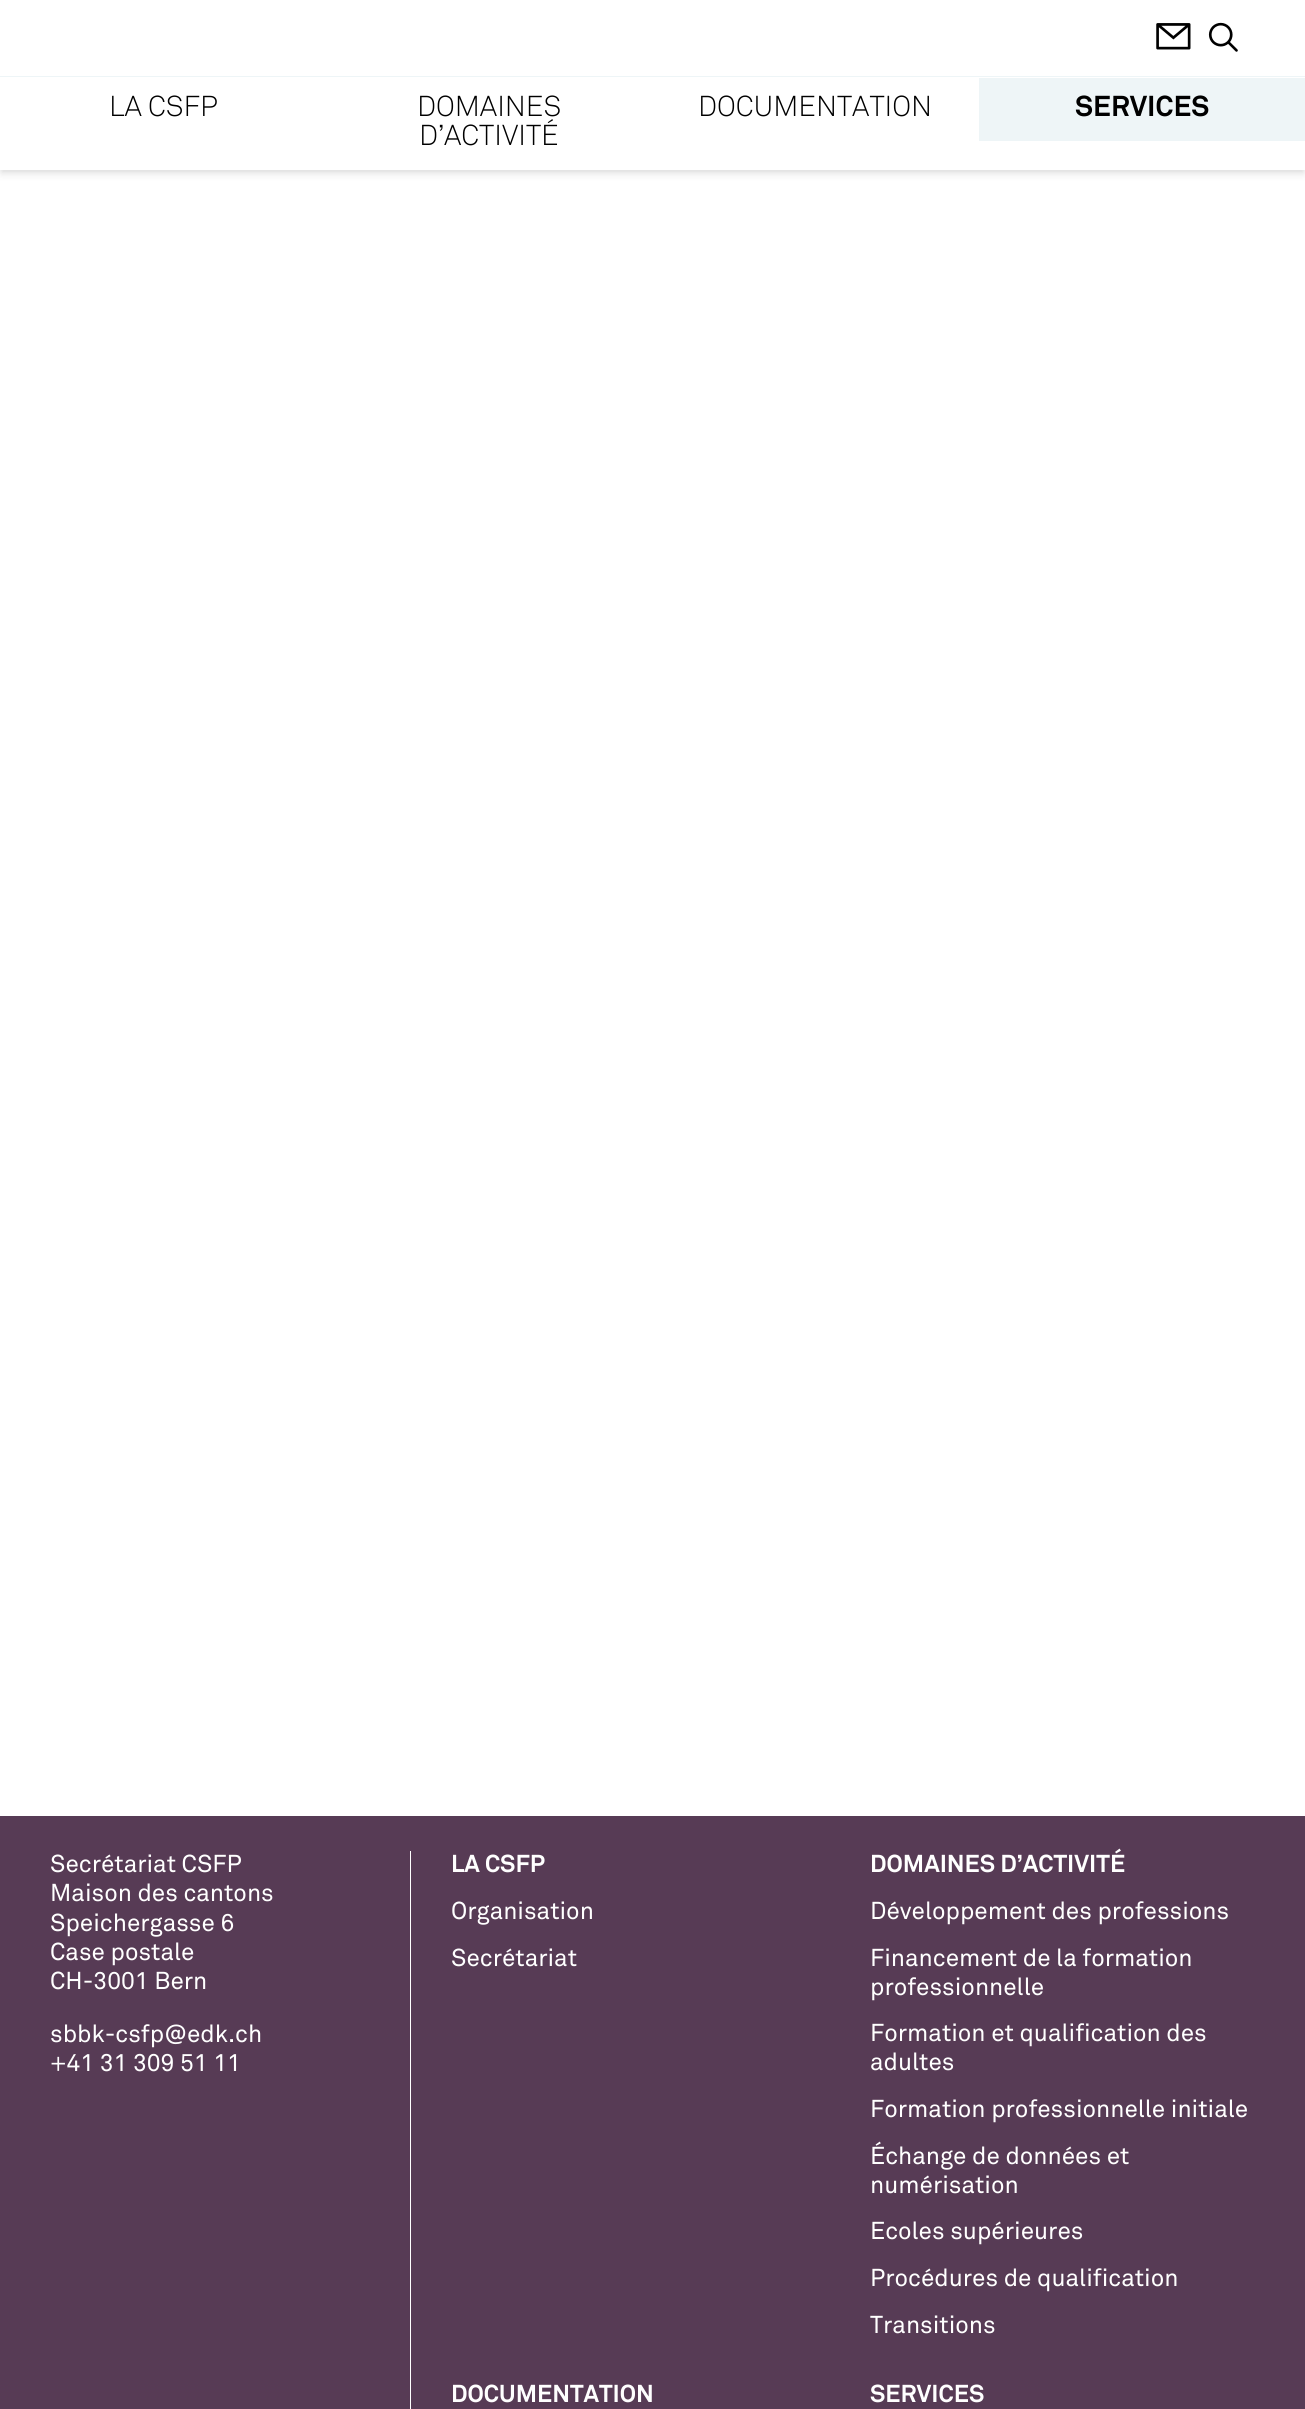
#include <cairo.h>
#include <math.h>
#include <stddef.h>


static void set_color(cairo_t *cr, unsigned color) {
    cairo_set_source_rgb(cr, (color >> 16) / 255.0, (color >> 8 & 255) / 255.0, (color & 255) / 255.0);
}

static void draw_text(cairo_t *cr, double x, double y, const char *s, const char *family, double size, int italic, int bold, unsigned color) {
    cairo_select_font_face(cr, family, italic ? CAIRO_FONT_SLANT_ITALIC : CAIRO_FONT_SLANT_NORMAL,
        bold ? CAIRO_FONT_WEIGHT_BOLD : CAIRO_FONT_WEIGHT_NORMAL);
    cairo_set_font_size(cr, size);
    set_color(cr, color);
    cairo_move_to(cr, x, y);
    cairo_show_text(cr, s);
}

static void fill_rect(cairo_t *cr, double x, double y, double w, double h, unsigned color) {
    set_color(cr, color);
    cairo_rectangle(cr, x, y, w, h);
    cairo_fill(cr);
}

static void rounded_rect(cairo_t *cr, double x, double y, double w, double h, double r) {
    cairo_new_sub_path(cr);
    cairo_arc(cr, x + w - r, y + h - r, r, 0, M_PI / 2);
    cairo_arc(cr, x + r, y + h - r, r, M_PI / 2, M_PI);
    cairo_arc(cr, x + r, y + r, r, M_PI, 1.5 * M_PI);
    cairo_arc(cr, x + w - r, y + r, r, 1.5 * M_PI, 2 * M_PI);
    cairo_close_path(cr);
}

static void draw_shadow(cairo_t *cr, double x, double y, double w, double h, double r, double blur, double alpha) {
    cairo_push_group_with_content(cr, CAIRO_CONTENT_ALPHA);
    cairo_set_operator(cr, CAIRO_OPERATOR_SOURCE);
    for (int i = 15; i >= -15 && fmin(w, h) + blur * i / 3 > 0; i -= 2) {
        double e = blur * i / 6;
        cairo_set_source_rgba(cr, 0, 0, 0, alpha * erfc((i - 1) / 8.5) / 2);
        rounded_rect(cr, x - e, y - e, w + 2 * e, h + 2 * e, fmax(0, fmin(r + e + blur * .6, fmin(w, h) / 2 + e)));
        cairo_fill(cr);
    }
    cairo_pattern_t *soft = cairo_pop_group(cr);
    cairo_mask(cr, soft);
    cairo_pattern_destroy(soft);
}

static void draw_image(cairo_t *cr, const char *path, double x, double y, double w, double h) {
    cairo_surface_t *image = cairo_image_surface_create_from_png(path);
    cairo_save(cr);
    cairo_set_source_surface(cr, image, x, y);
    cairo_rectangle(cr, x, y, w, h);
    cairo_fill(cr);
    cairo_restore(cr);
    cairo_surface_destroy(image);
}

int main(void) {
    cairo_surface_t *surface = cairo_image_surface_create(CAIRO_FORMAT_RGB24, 1305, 2409);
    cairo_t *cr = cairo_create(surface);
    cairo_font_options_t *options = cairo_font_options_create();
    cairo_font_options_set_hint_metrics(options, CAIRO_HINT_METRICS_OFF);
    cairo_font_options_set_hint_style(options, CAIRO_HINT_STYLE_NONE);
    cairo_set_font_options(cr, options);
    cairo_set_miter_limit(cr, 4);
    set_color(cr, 0xFFFFFF);
    cairo_paint(cr);
    set_color(cr, 0x000000);
    draw_shadow(cr, 1, 3, 1303, 168, 0, 2.5, 0.06);
    draw_shadow(cr, 1, 5, 1303, 169, 0, 4, 0.1);
    fill_rect(cr, 0, 0, 1305, 170, 0xFFFFFF);
    draw_image(cr, "assets/img1.png", 1156, 23, 35, 27);
    draw_image(cr, "assets/img2.png", 1208, 22, 30, 30);
    fill_rect(cr, 0, 76, 1305, 1, 0xEEF5F7);
    draw_text(cr, 109, 116, "LA CSFP", "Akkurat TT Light", 28.5, 0, 0, 0x000000);
    draw_text(cr, 417, 116, "DOMAINES", "Akkurat TT Light", 28.5, 0, 0, 0x000000);
    draw_text(cr, 419, 145, "D’ACTIVITÉ", "Akkurat TT Light", 28.5, 0, 0, 0x000000);
    draw_text(cr, 698, 116, "DOCUMENTATION", "Akkurat TT Light", 28.5, 0, 0, 0x000000);
    fill_rect(cr, 979, 78, 326, 63, 0xEEF5F7);
    draw_text(cr, 1075, 116, "SERVICES", "Akkurat TT", 28.5, 0, 1, 0x000000);
    fill_rect(cr, 0, 1816, 1305, 593, 0x573B55);
    draw_text(cr, 50, 1872, "Secrétariat CSFP", "Akkurat TT", 24.25, 0, 0, 0xFFFFFF);
    draw_text(cr, 50, 1901, "Maison des cantons", "Akkurat TT", 24.25, 0, 0, 0xFFFFFF);
    draw_text(cr, 50, 1931, "Speichergasse 6", "Akkurat TT", 24.25, 0, 0, 0xFFFFFF);
    draw_text(cr, 50, 1960, "Case postale", "Akkurat TT", 24.25, 0, 0, 0xFFFFFF);
    draw_text(cr, 50, 1989, "CH-3001 Bern", "Akkurat TT", 24.25, 0, 0, 0xFFFFFF);
    draw_text(cr, 50, 2042, "sbbk-csfp@edk.ch", "Akkurat TT", 24.25, 0, 0, 0xFFFFFF);
    draw_text(cr, 50, 2071, "+41 31 309 51 11", "Akkurat TT", 24.25, 0, 0, 0xFFFFFF);
    fill_rect(cr, 410, 1851, 1, 558, 0xFFFFFF);
    draw_text(cr, 451, 1872, "LA CSFP", "Akkurat TT", 24.25, 0, 1, 0xFFFFFF);
    draw_text(cr, 451, 1919, "Organisation", "Akkurat TT", 24.25, 0, 0, 0xFFFFFF);
    draw_text(cr, 451, 1966, "Secrétariat", "Akkurat TT", 24.25, 0, 0, 0xFFFFFF);
    draw_text(cr, 870, 1872, "DOMAINES D’ACTIVITÉ", "Akkurat TT", 24.25, 0, 1, 0xFFFFFF);
    draw_text(cr, 870, 1919, "Développement des professions", "Akkurat TT", 24.25, 0, 0, 0xFFFFFF);
    draw_text(cr, 870, 1966, "Financement de la formation", "Akkurat TT", 24.25, 0, 0, 0xFFFFFF);
    draw_text(cr, 870, 1995, "professionnelle", "Akkurat TT", 24.25, 0, 0, 0xFFFFFF);
    draw_text(cr, 870, 2041, "Formation et qualification des", "Akkurat TT", 24.25, 0, 0, 0xFFFFFF);
    draw_text(cr, 870, 2070, "adultes", "Akkurat TT", 24.25, 0, 0, 0xFFFFFF);
    draw_text(cr, 870, 2117, "Formation professionnelle initiale", "Akkurat TT", 24.25, 0, 0, 0xFFFFFF);
    draw_text(cr, 870, 2164, "Échange de données et", "Akkurat TT", 24.25, 0, 0, 0xFFFFFF);
    draw_text(cr, 870, 2193, "numérisation", "Akkurat TT", 24.25, 0, 0, 0xFFFFFF);
    draw_text(cr, 870, 2239, "Ecoles supérieures", "Akkurat TT", 24.25, 0, 0, 0xFFFFFF);
    draw_text(cr, 870, 2286, "Procédures de qualification", "Akkurat TT", 24.25, 0, 0, 0xFFFFFF);
    draw_text(cr, 870, 2333, "Transitions", "Akkurat TT", 24.25, 0, 0, 0xFFFFFF);
    draw_text(cr, 451, 2402, "DOCUMENTATION", "Akkurat TT", 24.25, 0, 1, 0xFFFFFF);
    draw_text(cr, 870, 2402, "SERVICES", "Akkurat TT", 24.25, 0, 1, 0xFFFFFF);
    cairo_surface_write_to_png(surface, "output.png");
    cairo_font_options_destroy(options);
    cairo_destroy(cr);
    cairo_surface_destroy(surface);
    return 0;
}
